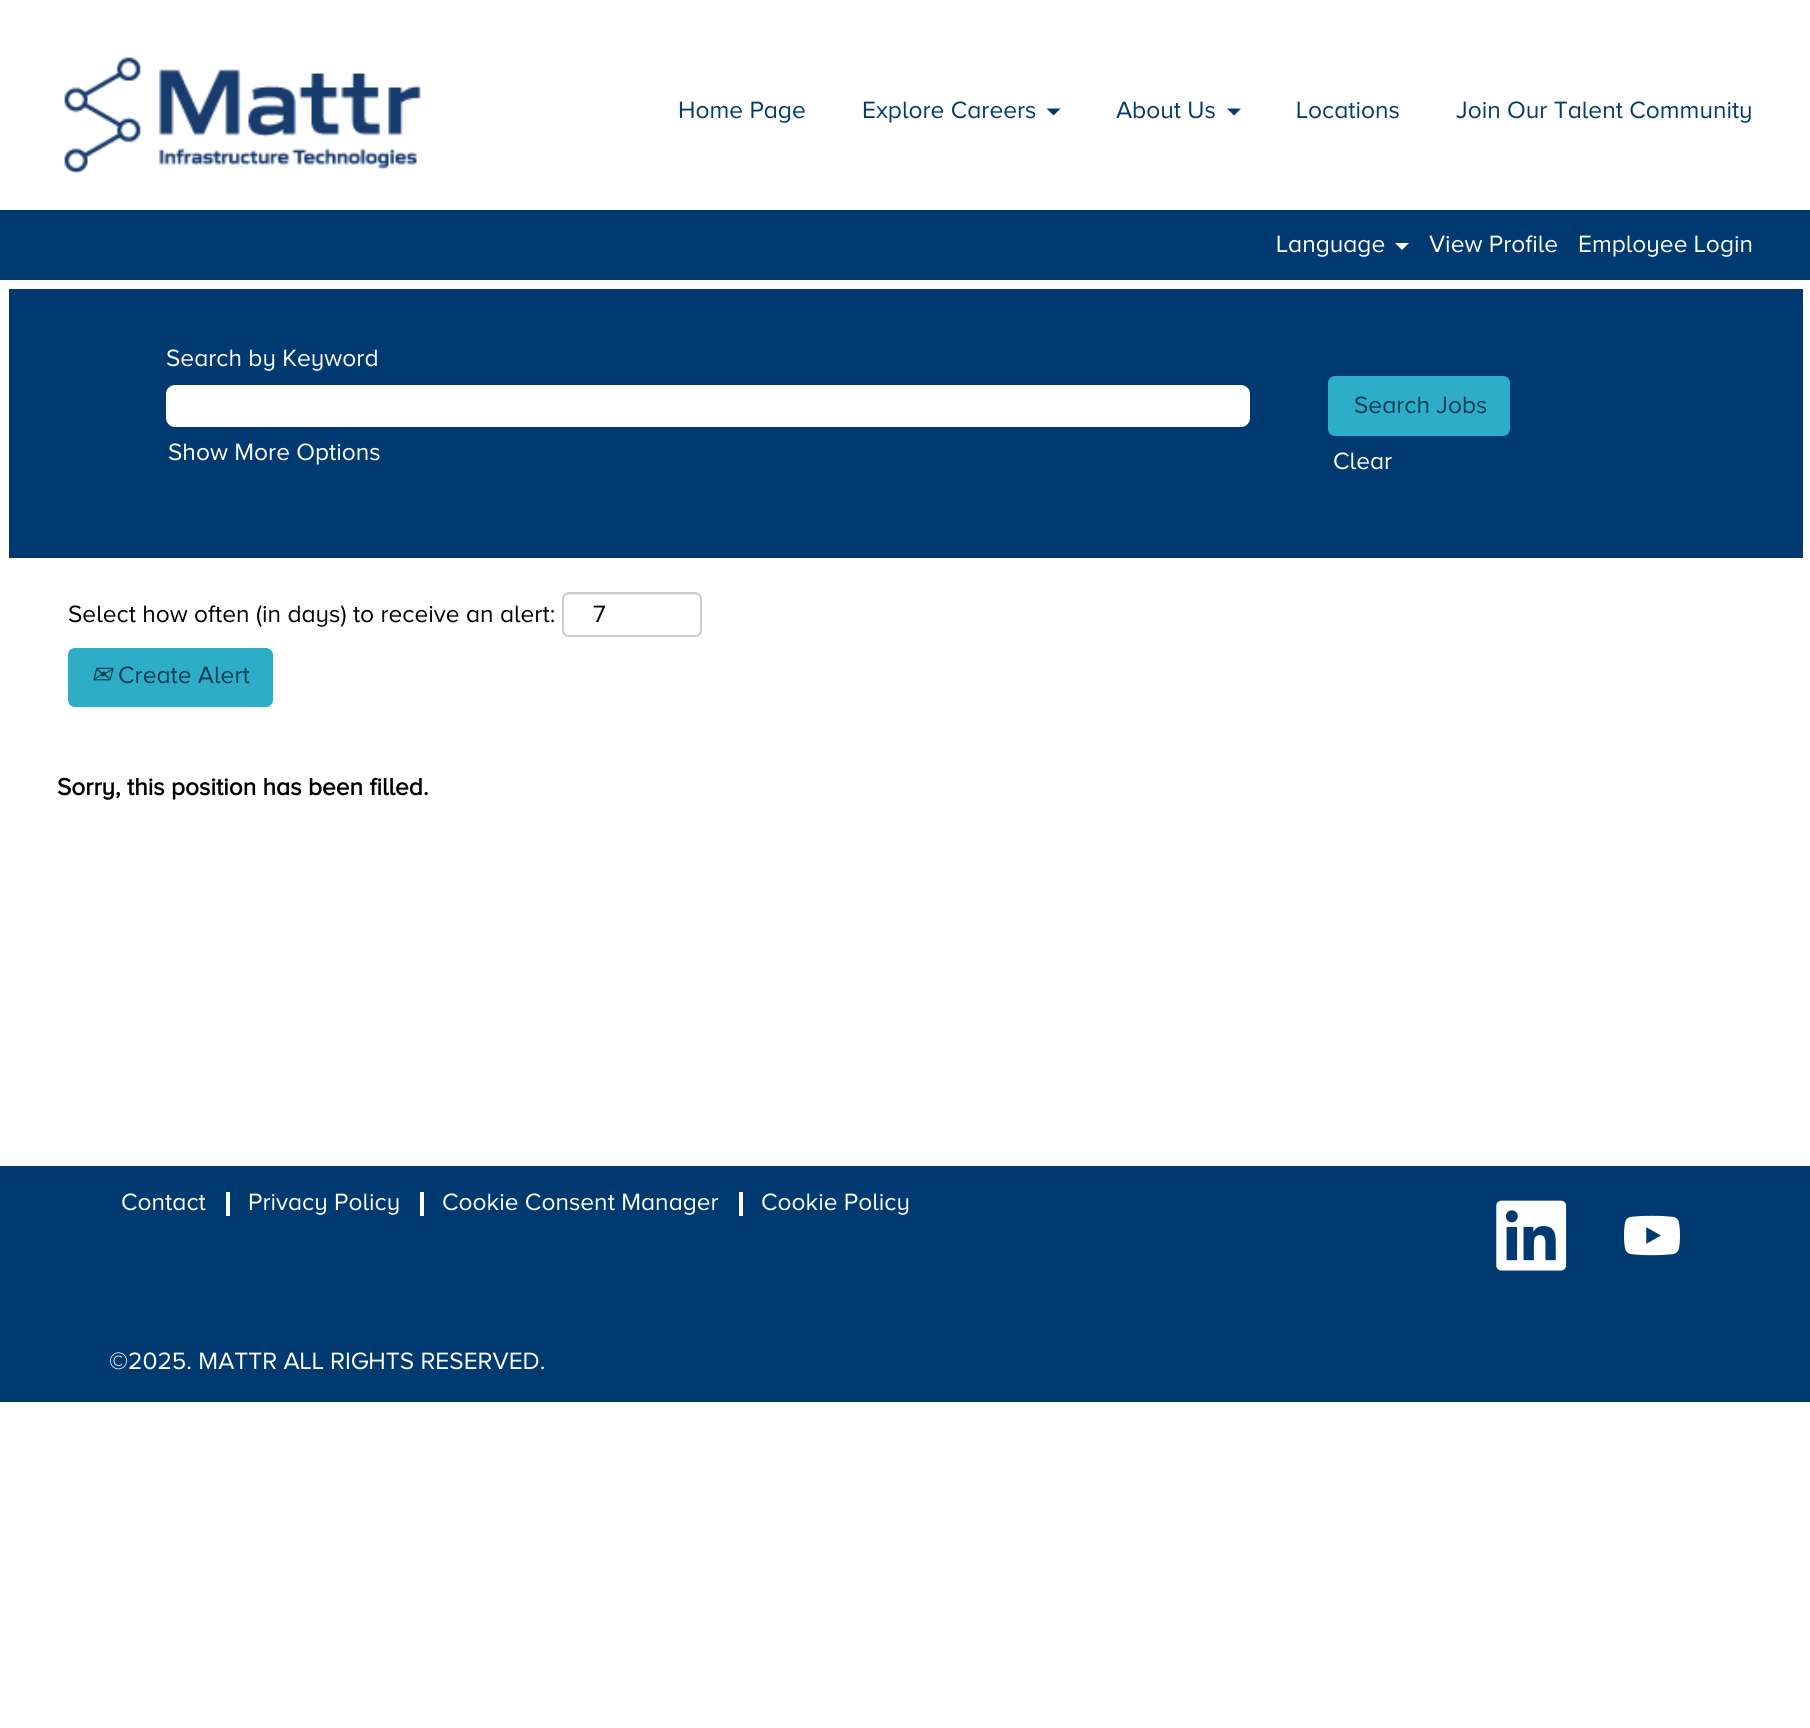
#include <cairo.h>
#include <math.h>
#include <stddef.h>


static void set_color(cairo_t *cr, unsigned color) {
    cairo_set_source_rgb(cr, (color >> 16) / 255.0, (color >> 8 & 255) / 255.0, (color & 255) / 255.0);
}

static void draw_text(cairo_t *cr, double x, double y, const char *s, const char *family, double size, int italic, int bold, unsigned color) {
    cairo_select_font_face(cr, family, italic ? CAIRO_FONT_SLANT_ITALIC : CAIRO_FONT_SLANT_NORMAL,
        bold ? CAIRO_FONT_WEIGHT_BOLD : CAIRO_FONT_WEIGHT_NORMAL);
    cairo_set_font_size(cr, size);
    set_color(cr, color);
    cairo_move_to(cr, x, y);
    cairo_show_text(cr, s);
}

static void fill_rect(cairo_t *cr, double x, double y, double w, double h, unsigned color) {
    set_color(cr, color);
    cairo_rectangle(cr, x, y, w, h);
    cairo_fill(cr);
}

static void rounded_rect(cairo_t *cr, double x, double y, double w, double h, double r) {
    cairo_new_sub_path(cr);
    cairo_arc(cr, x + w - r, y + h - r, r, 0, M_PI / 2);
    cairo_arc(cr, x + r, y + h - r, r, M_PI / 2, M_PI);
    cairo_arc(cr, x + r, y + r, r, M_PI, 1.5 * M_PI);
    cairo_arc(cr, x + w - r, y + r, r, 1.5 * M_PI, 2 * M_PI);
    cairo_close_path(cr);
}

static void draw_image(cairo_t *cr, const char *path, double x, double y, double w, double h) {
    cairo_surface_t *image = cairo_image_surface_create_from_png(path);
    cairo_save(cr);
    cairo_set_source_surface(cr, image, x, y);
    cairo_rectangle(cr, x, y, w, h);
    cairo_fill(cr);
    cairo_restore(cr);
    cairo_surface_destroy(image);
}

int main(void) {
    cairo_surface_t *surface = cairo_image_surface_create(CAIRO_FORMAT_RGB24, 1810, 1728);
    cairo_t *cr = cairo_create(surface);
    cairo_font_options_t *options = cairo_font_options_create();
    cairo_font_options_set_hint_metrics(options, CAIRO_HINT_METRICS_OFF);
    cairo_font_options_set_hint_style(options, CAIRO_HINT_STYLE_NONE);
    cairo_set_font_options(cr, options);
    cairo_set_miter_limit(cr, 4);
    set_color(cr, 0xFFFFFF);
    cairo_paint(cr);
    draw_image(cr, "assets/img1.png", 64, 57, 357, 117);
    draw_text(cr, 678, 118, "Home Page", "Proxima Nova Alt", 24.5, 0, 0, 0x003A70);
    draw_text(cr, 862, 118, "Explore Careers", "Proxima Nova Alt", 24.5, 0, 0, 0x003A70);
    cairo_new_path(cr);
    cairo_move_to(cr, 1046.5, 108.5);
    cairo_line_to(cr, 1060.5, 108.5);
    cairo_line_to(cr, 1053.5, 115.5);
    cairo_close_path(cr);
    cairo_fill(cr);
    draw_text(cr, 1116, 118, "About Us", "Proxima Nova Alt", 24.5, 0, 0, 0x003A70);
    cairo_new_path(cr);
    cairo_move_to(cr, 1227, 108.5);
    cairo_line_to(cr, 1241, 108.5);
    cairo_line_to(cr, 1234, 115.5);
    cairo_close_path(cr);
    cairo_fill(cr);
    draw_text(cr, 1296, 118, "Locations", "Proxima Nova Alt", 24.5, 0, 0, 0x003A70);
    draw_text(cr, 1456, 118, "Join Our Talent Community", "Proxima Nova Alt", 24.5, 0, 0, 0x003A70);
    fill_rect(cr, 0, 210, 1810, 70, 0x003A70);
    draw_text(cr, 1276, 252, "Language", "Proxima Nova Alt", 24.5, 0, 0, 0xFFFFFF);
    cairo_new_path(cr);
    cairo_move_to(cr, 1395, 243);
    cairo_line_to(cr, 1409, 243);
    cairo_line_to(cr, 1402, 250);
    cairo_close_path(cr);
    cairo_fill(cr);
    draw_text(cr, 1429, 252, "View Profile", "Proxima Nova Alt", 24.5, 0, 0, 0xFFFFFF);
    draw_text(cr, 1578, 252, "Employee Login", "Proxima Nova Alt", 24.5, 0, 0, 0xFFFFFF);
    fill_rect(cr, 9, 289, 1794, 269, 0x003A70);
    draw_text(cr, 166, 366, "Search by Keyword", "Proxima Nova Alt", 24.5, 0, 0, 0xFFFFFF);
    rounded_rect(cr, 166, 385, 1084, 42, 9);
    cairo_fill(cr);
    draw_text(cr, 168, 460, "Show More Options", "Proxima Nova Alt", 24.5, 0, 0, 0xFFFFFF);
    set_color(cr, 0x2EADC8);
    rounded_rect(cr, 1328, 376, 182, 60, 7);
    cairo_fill(cr);
    draw_text(cr, 1354, 413, "Search Jobs", "Proxima Nova Alt", 24.5, 0, 0, 0x003D51);
    draw_text(cr, 1333, 469, "Clear", "Proxima Nova Alt", 24.5, 0, 0, 0xFFFFFF);
    draw_text(cr, 68, 622, "Select how often (in days) to receive an alert:", "Proxima Nova Alt", 24.5, 0, 0, 0x000000);
    set_color(cr, 0xECECEC);
    cairo_new_path(cr);
    cairo_move_to(cr, 569, 595);
    cairo_line_to(cr, 695, 595);
    cairo_curve_to(cr, 698, 595, 700, 597, 700, 600);
    cairo_line_to(cr, 700, 598);
    cairo_curve_to(cr, 700, 595, 698, 593, 695, 593);
    cairo_line_to(cr, 569, 593);
    cairo_curve_to(cr, 566, 593, 564, 595, 564, 598);
    cairo_line_to(cr, 564, 600);
    cairo_curve_to(cr, 564, 597, 566, 595, 569, 595);
    cairo_close_path(cr);
    cairo_fill(cr);
    rounded_rect(cr, 563, 593, 138, 43, 6);
    set_color(cr, 0xCCCCCC);
    cairo_stroke(cr);
    draw_text(cr, 593, 622, "7", "Proxima Nova Alt", 24.5, 0, 0, 0x000000);
    set_color(cr, 0x2EADC8);
    rounded_rect(cr, 68, 648, 205, 59, 7);
    cairo_fill(cr);
    draw_text(cr, 91, 683, "✉", "DejaVu Sans", 24.5, 1, 0, 0x003D51);
    draw_text(cr, 118, 683, "Create Alert", "Proxima Nova Alt", 24.5, 0, 0, 0x003D51);
    draw_text(cr, 57, 795, "Sorry, this position has been filled.", "Proxima Nova Alt", 24.5, 0, 1, 0x000000);
    fill_rect(cr, 0, 1166, 1810, 236, 0x003A70);
    fill_rect(cr, 226, 1192, 4, 24, 0xFFFFFF);
    draw_text(cr, 121, 1210, "Contact", "Proxima Nova Alt", 24.5, 0, 0, 0xFFFFFF);
    fill_rect(cr, 420, 1192, 4, 24, 0xFFFFFF);
    draw_text(cr, 248, 1210, "Privacy Policy", "Proxima Nova Alt", 24.5, 0, 0, 0xFFFFFF);
    fill_rect(cr, 739, 1192, 4, 24, 0xFFFFFF);
    draw_text(cr, 442, 1210, "Cookie Consent Manager", "Proxima Nova Alt", 24.5, 0, 0, 0xFFFFFF);
    draw_text(cr, 761, 1210, "Cookie Policy", "Proxima Nova Alt", 24.5, 0, 0, 0xFFFFFF);
    draw_image(cr, "assets/img2.png", 1496, 1200, 71, 71);
    draw_image(cr, "assets/img3.png", 1624, 1215, 56, 41);
    draw_text(cr, 109, 1369, "©2025. MATTR ALL RIGHTS RESERVED.", "Proxima Nova Alt", 24.5, 0, 0, 0xFFFFFF);
    cairo_surface_write_to_png(surface, "output.png");
    cairo_font_options_destroy(options);
    cairo_destroy(cr);
    cairo_surface_destroy(surface);
    return 0;
}
